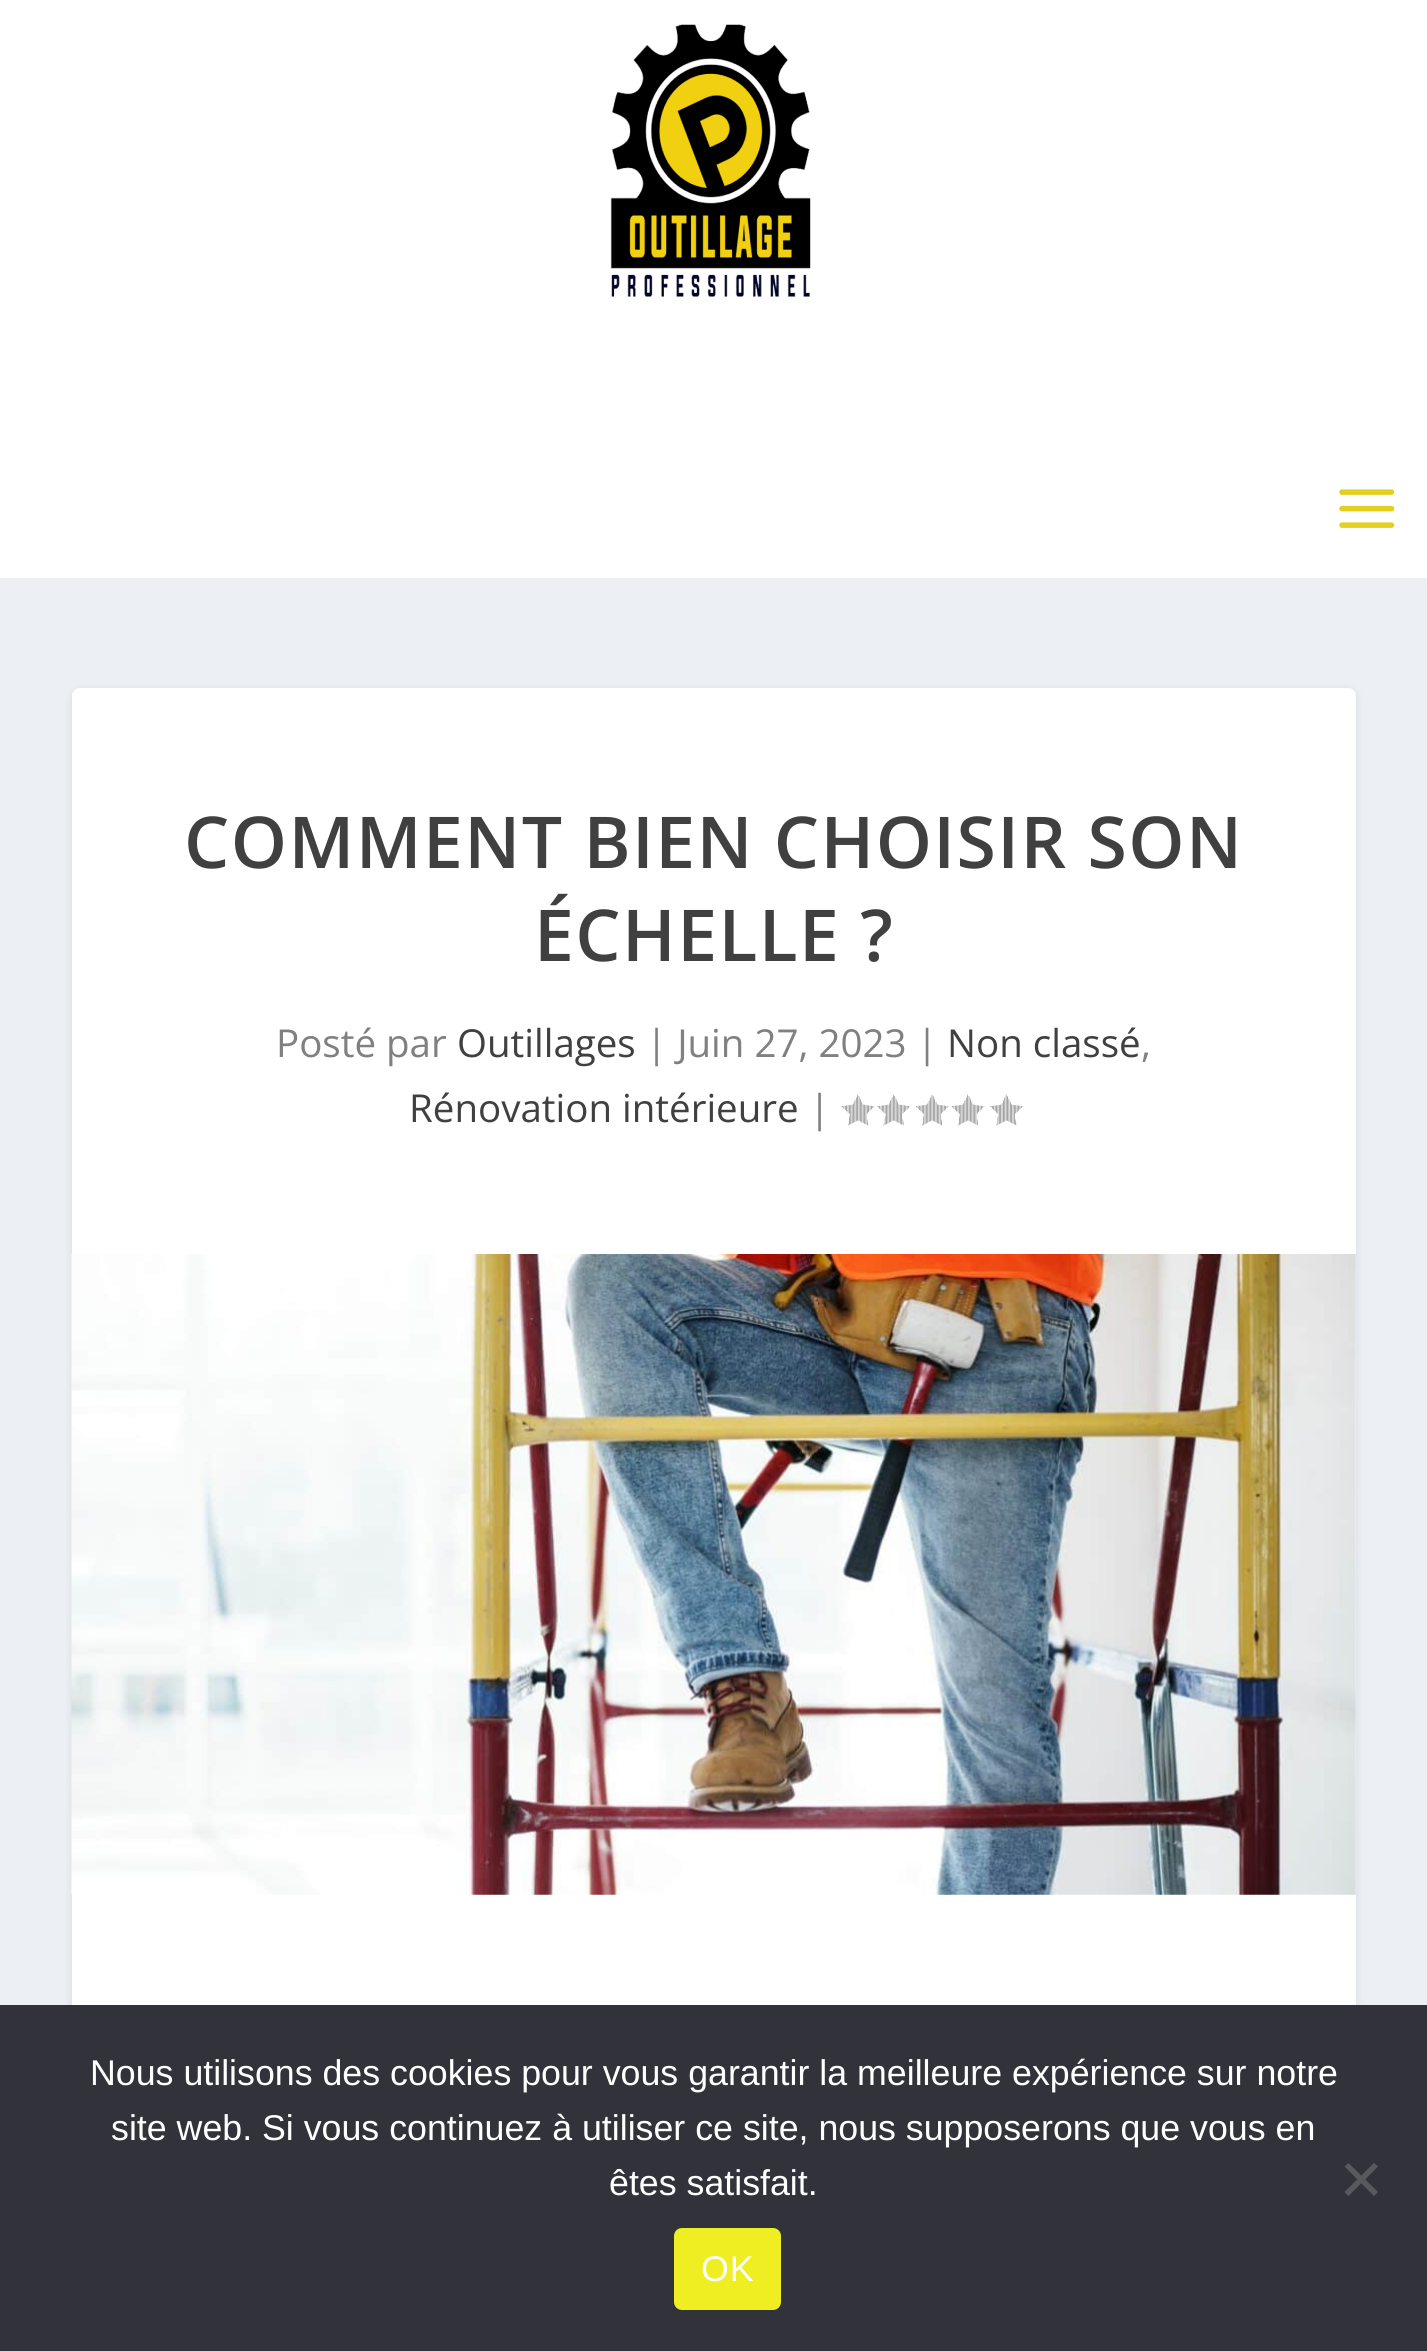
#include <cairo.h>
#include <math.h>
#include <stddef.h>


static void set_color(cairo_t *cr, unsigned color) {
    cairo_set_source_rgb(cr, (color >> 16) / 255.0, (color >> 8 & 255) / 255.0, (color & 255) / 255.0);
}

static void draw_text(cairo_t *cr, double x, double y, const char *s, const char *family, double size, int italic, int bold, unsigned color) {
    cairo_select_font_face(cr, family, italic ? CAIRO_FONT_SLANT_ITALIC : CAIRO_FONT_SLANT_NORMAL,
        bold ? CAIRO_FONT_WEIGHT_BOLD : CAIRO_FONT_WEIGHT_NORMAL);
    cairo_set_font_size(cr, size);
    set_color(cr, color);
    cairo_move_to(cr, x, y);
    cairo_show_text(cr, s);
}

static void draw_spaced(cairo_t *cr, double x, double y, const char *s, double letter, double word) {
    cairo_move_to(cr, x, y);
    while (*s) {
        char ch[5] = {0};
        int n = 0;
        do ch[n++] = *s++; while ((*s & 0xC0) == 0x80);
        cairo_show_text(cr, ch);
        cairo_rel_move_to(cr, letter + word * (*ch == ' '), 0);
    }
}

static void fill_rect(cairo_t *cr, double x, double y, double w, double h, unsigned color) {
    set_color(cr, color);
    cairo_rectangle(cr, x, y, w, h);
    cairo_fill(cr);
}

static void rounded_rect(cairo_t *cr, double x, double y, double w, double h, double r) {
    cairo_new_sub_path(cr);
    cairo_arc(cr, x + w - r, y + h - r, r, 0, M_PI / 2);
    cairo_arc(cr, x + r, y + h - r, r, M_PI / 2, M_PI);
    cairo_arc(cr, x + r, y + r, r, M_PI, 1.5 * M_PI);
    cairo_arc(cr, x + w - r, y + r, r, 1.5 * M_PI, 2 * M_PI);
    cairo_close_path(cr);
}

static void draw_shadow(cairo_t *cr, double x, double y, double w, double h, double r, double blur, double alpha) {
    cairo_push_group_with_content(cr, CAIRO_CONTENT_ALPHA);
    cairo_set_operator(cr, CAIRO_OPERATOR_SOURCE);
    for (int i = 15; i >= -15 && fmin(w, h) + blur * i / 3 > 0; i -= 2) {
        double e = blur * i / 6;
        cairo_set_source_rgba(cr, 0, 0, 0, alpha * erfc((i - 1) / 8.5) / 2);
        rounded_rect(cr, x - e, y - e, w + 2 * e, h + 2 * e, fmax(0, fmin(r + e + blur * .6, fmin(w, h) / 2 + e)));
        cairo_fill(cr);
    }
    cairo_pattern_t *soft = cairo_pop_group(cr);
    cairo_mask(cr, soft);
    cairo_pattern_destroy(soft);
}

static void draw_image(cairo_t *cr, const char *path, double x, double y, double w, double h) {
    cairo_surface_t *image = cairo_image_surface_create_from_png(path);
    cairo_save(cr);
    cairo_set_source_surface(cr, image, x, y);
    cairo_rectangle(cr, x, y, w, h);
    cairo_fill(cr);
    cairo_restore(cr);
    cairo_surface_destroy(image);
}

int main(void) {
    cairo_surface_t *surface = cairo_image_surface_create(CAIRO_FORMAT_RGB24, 1427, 2351);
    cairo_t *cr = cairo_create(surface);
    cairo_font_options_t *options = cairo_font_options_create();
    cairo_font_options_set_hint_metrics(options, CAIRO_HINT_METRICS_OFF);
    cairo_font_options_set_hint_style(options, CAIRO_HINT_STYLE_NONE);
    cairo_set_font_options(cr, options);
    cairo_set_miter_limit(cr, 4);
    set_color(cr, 0xECF0F5);
    cairo_paint(cr);
    fill_rect(cr, 0, 0, 1427, 578, 0xFFFFFF);
    draw_image(cr, "assets/img1.png", 610, 24, 201, 273);
    draw_image(cr, "assets/img2.png", 1339, 489, 56, 39);
    set_color(cr, 0x000000);
    draw_shadow(cr, 72, 690, 1284, 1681, 8, 4, 0.1);
    set_color(cr, 0xFFFFFF);
    rounded_rect(cr, 72, 688, 1284, 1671, 8);
    cairo_fill(cr);
    cairo_select_font_face(cr, "Open Sans SemiBold", CAIRO_FONT_SLANT_NORMAL, CAIRO_FONT_WEIGHT_NORMAL);
    cairo_set_font_size(cr, 71.5);
    set_color(cr, 0x404040);
    draw_spaced(cr, 184, 868, "COMMENT BIEN CHOISIR SON", 1.4, 0);
    draw_spaced(cr, 534, 961, "ÉCHELLE ?", 1.4, 0);
    draw_text(cr, 276, 1057, "Posté par", "Open Sans", 38.5, 0, 0, 0x808080);
    draw_text(cr, 457, 1057, "Outillages", "Open Sans", 38.5, 0, 0, 0x404040);
    draw_text(cr, 646, 1057, "| Juin 27, 2023 |", "Open Sans", 38.5, 0, 0, 0x808080);
    draw_text(cr, 947, 1057, "Non classé", "Open Sans", 38.5, 0, 0, 0x404040);
    draw_text(cr, 1141, 1057, ",", "Open Sans", 38.5, 0, 0, 0x808080);
    draw_text(cr, 409, 1122, "Rénovation intérieure", "Open Sans", 38.5, 0, 0, 0x404040);
    draw_text(cr, 809, 1122, "|", "Open Sans", 38.5, 0, 0, 0x808080);
    draw_image(cr, "assets/img3.png", 841, 1094, 34, 32);
    draw_image(cr, "assets/img4.png", 877, 1094, 33, 32);
    draw_image(cr, "assets/img5.png", 916, 1094, 33, 32);
    draw_image(cr, "assets/img3.png", 951, 1094, 34, 32);
    draw_image(cr, "assets/img6.png", 990, 1094, 33, 32);
    draw_image(cr, "assets/img7.png", 71, 1254, 1285, 641);
    fill_rect(cr, 0, 2005, 1427, 346, 0x32323A);
    draw_text(cr, 90, 2085, "Nous utilisons des cookies pour vous garantir la meilleure expérience sur notre", "Liberation Sans", 35.75, 0, 0, 0xFFFFFF);
    draw_text(cr, 111, 2140, "site web. Si vous continuez à utiliser ce site, nous supposerons que vous en", "Liberation Sans", 35.75, 0, 0, 0xFFFFFF);
    draw_text(cr, 609, 2195, "êtes satisfait.", "Liberation Sans", 35.75, 0, 0, 0xFFFFFF);
    set_color(cr, 0x59595D);
    cairo_new_path(cr);
    cairo_move_to(cr, 1374, 2163);
    cairo_line_to(cr, 1378, 2166.5);
    cairo_line_to(cr, 1348.5, 2196);
    cairo_line_to(cr, 1344.5, 2192);
    cairo_close_path(cr);
    cairo_fill(cr);
    cairo_new_path(cr);
    cairo_move_to(cr, 1344.5, 2166.5);
    cairo_line_to(cr, 1348.5, 2163);
    cairo_line_to(cr, 1378, 2192);
    cairo_line_to(cr, 1374, 2196);
    cairo_close_path(cr);
    cairo_fill(cr);
    set_color(cr, 0xEEEE22);
    rounded_rect(cr, 674, 2228, 107, 82, 8);
    cairo_fill(cr);
    set_color(cr, 0xFFFFFF);
    draw_spaced(cr, 701, 2281, "OK", 1, 0);
    cairo_surface_write_to_png(surface, "output.png");
    cairo_font_options_destroy(options);
    cairo_destroy(cr);
    cairo_surface_destroy(surface);
    return 0;
}
